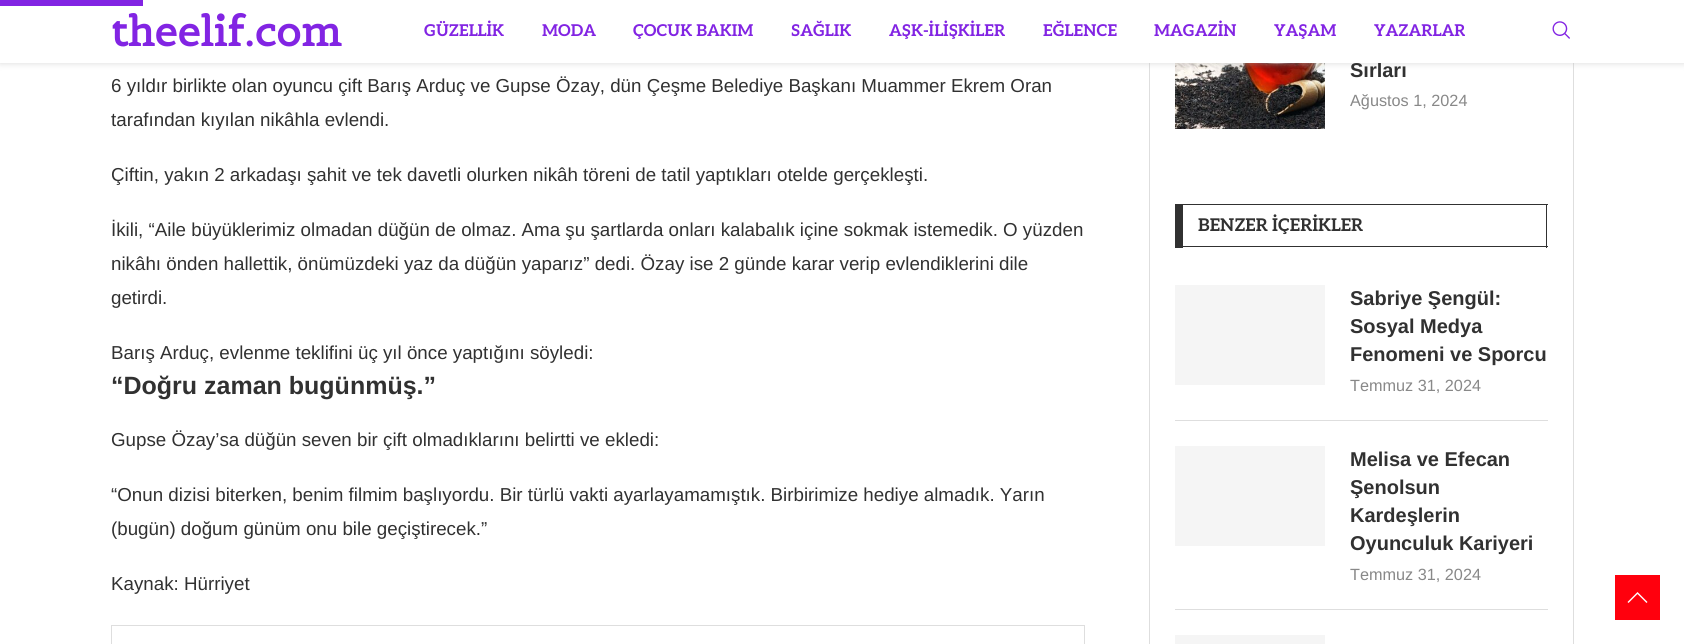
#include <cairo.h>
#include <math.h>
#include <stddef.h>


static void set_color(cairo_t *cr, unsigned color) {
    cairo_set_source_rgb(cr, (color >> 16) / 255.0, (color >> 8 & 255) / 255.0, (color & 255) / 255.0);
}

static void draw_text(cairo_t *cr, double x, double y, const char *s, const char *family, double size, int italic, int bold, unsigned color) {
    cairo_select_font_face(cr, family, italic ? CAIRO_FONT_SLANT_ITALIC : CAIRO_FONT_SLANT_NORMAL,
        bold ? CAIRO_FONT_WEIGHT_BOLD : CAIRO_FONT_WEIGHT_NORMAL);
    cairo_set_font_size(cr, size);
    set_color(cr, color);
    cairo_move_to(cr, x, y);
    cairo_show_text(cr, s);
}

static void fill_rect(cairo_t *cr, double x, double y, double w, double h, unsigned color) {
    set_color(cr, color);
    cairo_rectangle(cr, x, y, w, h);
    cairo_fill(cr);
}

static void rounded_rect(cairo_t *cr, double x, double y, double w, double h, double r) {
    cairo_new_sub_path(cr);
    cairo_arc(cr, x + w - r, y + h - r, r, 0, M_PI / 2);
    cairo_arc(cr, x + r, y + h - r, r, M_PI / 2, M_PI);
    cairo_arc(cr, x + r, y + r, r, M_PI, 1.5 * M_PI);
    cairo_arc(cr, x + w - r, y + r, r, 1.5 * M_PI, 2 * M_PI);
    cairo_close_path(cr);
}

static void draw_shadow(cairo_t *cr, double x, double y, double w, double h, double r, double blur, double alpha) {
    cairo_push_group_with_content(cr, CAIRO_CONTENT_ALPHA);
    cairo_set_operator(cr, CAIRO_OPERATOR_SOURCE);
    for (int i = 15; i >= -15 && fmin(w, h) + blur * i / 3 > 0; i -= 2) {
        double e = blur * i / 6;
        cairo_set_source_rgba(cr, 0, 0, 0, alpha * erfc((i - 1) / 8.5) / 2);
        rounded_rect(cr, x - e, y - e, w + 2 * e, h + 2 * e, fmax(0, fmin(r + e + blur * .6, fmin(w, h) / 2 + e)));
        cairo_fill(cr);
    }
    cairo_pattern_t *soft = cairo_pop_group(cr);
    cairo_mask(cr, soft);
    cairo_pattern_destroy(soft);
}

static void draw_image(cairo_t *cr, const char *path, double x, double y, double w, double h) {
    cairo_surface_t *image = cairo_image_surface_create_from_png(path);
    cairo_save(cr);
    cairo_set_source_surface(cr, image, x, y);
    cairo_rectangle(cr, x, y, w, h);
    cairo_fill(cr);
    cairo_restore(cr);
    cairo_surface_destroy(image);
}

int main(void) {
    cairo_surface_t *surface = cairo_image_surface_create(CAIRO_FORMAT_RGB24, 1684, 644);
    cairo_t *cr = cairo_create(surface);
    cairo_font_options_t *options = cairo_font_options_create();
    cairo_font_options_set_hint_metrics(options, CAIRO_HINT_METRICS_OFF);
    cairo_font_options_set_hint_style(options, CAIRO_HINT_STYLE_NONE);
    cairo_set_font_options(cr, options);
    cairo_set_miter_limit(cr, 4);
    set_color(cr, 0xFFFFFF);
    cairo_paint(cr);
    cairo_rectangle(cr, 1149.5, -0.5, 424, 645);
    set_color(cr, 0xDEDEDE);
    cairo_set_line_width(cr, 1);
    cairo_stroke(cr);
    draw_image(cr, "assets/img2.png", 1175, 63, 150, 66);
    set_color(cr, 0xBEBEBE);
    draw_shadow(cr, 0, 1, 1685, 63, 0, 3, 0.46);
    draw_text(cr, 1350, 77, "Sırları", "Liberation Sans", 20, 0, 1, 0x313131);
    fill_rect(cr, 0, 0, 1684, 63, 0xFFFFFF);
    fill_rect(cr, 0, 0, 143, 6, 0x8224E3);
    draw_text(cr, 111, 46, "theelif.com", "Belgrano", 41.25, 0, 1, 0x8224E3);
    draw_text(cr, 424, 36, "GÜZELLİK", "Aleo", 16.25, 0, 1, 0x8224E3);
    draw_text(cr, 542, 36, "MODA", "Aleo", 16.25, 0, 1, 0x8224E3);
    draw_text(cr, 633, 36, "ÇOCUK BAKIM", "Aleo", 16.25, 0, 1, 0x8224E3);
    draw_text(cr, 791, 36, "SAĞLIK", "Aleo", 16.25, 0, 1, 0x8224E3);
    draw_text(cr, 889, 36, "AŞK-İLİŞKİLER", "Aleo", 16.25, 0, 1, 0x8224E3);
    draw_text(cr, 1043, 36, "EĞLENCE", "Aleo", 16.25, 0, 1, 0x8224E3);
    draw_text(cr, 1154, 36, "MAGAZİN", "Aleo", 16.25, 0, 1, 0x8224E3);
    draw_text(cr, 1274, 36, "YAŞAM", "Aleo", 16.25, 0, 1, 0x8224E3);
    draw_text(cr, 1374, 36, "YAZARLAR", "Aleo", 16.25, 0, 1, 0x8224E3);
    draw_image(cr, "assets/img1.png", 1552, 21, 18, 18);
    draw_text(cr, 111, 92, "6 yıldır birlikte olan oyuncu çift Barış Arduç ve Gupse Özay, dün Çeşme Belediye Başkanı Muammer Ekrem Oran", "Liberation Sans", 18.75, 0, 0, 0x313131);
    draw_text(cr, 111, 126, "tarafından kıyılan nikâhla evlendi.", "Liberation Sans", 18.75, 0, 0, 0x313131);
    draw_text(cr, 111, 181, "Çiftin, yakın 2 arkadaşı şahit ve tek davetli olurken nikâh töreni de tatil yaptıkları otelde gerçekleşti.", "Liberation Sans", 18.75, 0, 0, 0x313131);
    draw_text(cr, 111, 236, "İkili, “Aile büyüklerimiz olmadan düğün de olmaz. Ama şu şartlarda onları kalabalık içine sokmak istemedik. O yüzden", "Liberation Sans", 18.75, 0, 0, 0x313131);
    draw_text(cr, 111, 270, "nikâhı önden hallettik, önümüzdeki yaz da düğün yaparız” dedi. Özay ise 2 günde karar verip evlendiklerini dile", "Liberation Sans", 18.75, 0, 0, 0x313131);
    draw_text(cr, 111, 304, "getirdi.", "Liberation Sans", 18.75, 0, 0, 0x313131);
    draw_text(cr, 111, 359, "Barış Arduç, evlenme teklifini üç yıl önce yaptığını söyledi:", "Liberation Sans", 18.75, 0, 0, 0x313131);
    draw_text(cr, 111, 394, "“Doğru zaman bugünmüş.”", "Liberation Sans", 25, 0, 1, 0x313131);
    draw_text(cr, 111, 446, "Gupse Özay’sa düğün seven bir çift olmadıklarını belirtti ve ekledi:", "Liberation Sans", 18.75, 0, 0, 0x313131);
    draw_text(cr, 111, 501, "“Onun dizisi biterken, benim filmim başlıyordu. Bir türlü vakti ayarlayamamıştık. Birbirimize hediye almadık. Yarın", "Liberation Sans", 18.75, 0, 0, 0x313131);
    draw_text(cr, 111, 535, "(bugün) doğum günüm onu bile geçiştirecek.”", "Liberation Sans", 18.75, 0, 0, 0x313131);
    draw_text(cr, 111, 590, "Kaynak: Hürriyet", "Liberation Sans", 18.75, 0, 0, 0x313131);
    cairo_rectangle(cr, 111.5, 625.5, 973, 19);
    set_color(cr, 0xDEDEDE);
    cairo_stroke(cr);
    draw_text(cr, 1350, 106, "Ağustos 1, 2024", "Liberation Sans", 16.25, 0, 0, 0x888888);
    fill_rect(cr, 1175, 204, 373, 1, 0x313131);
    fill_rect(cr, 1546, 204, 1, 44, 0x313131);
    fill_rect(cr, 1175, 246, 373, 1, 0x313131);
    fill_rect(cr, 1175, 204, 8, 44, 0x313131);
    draw_text(cr, 1198, 231, "BENZER İÇERİKLER", "Aleo", 17.5, 0, 1, 0x313131);
    fill_rect(cr, 1175, 420, 373, 1, 0xDEDEDE);
    fill_rect(cr, 1175, 285, 150, 100, 0xF5F5F5);
    draw_text(cr, 1350, 305, "Sabriye Şengül:", "Liberation Sans", 20, 0, 1, 0x313131);
    draw_text(cr, 1350, 333, "Sosyal Medya", "Liberation Sans", 20, 0, 1, 0x313131);
    draw_text(cr, 1350, 361, "Fenomeni ve Sporcu", "Liberation Sans", 20, 0, 1, 0x313131);
    draw_text(cr, 1350, 391, "Temmuz 31, 2024", "Liberation Sans", 16.25, 0, 0, 0x888888);
    fill_rect(cr, 1175, 609, 373, 1, 0xDEDEDE);
    fill_rect(cr, 1175, 446, 150, 100, 0xF5F5F5);
    draw_text(cr, 1350, 466, "Melisa ve Efecan", "Liberation Sans", 20, 0, 1, 0x313131);
    draw_text(cr, 1350, 494, "Şenolsun", "Liberation Sans", 20, 0, 1, 0x313131);
    draw_text(cr, 1350, 522, "Kardeşlerin", "Liberation Sans", 20, 0, 1, 0x313131);
    draw_text(cr, 1350, 550, "Oyunculuk Kariyeri", "Liberation Sans", 20, 0, 1, 0x313131);
    draw_text(cr, 1350, 580, "Temmuz 31, 2024", "Liberation Sans", 16.25, 0, 0, 0x888888);
    fill_rect(cr, 1175, 635, 150, 9, 0xF5F5F5);
    fill_rect(cr, 1615, 575, 45, 45, 0xFF000D);
    set_color(cr, 0xFFFFFF);
    cairo_new_path(cr);
    cairo_move_to(cr, 1637.5, 592);
    cairo_line_to(cr, 1627.5, 602);
    cairo_line_to(cr, 1628.5, 603);
    cairo_line_to(cr, 1637.5, 594);
    cairo_line_to(cr, 1646.5, 603);
    cairo_line_to(cr, 1647.5, 602);
    cairo_close_path(cr);
    cairo_fill(cr);
    cairo_surface_write_to_png(surface, "output.png");
    cairo_font_options_destroy(options);
    cairo_destroy(cr);
    cairo_surface_destroy(surface);
    return 0;
}
